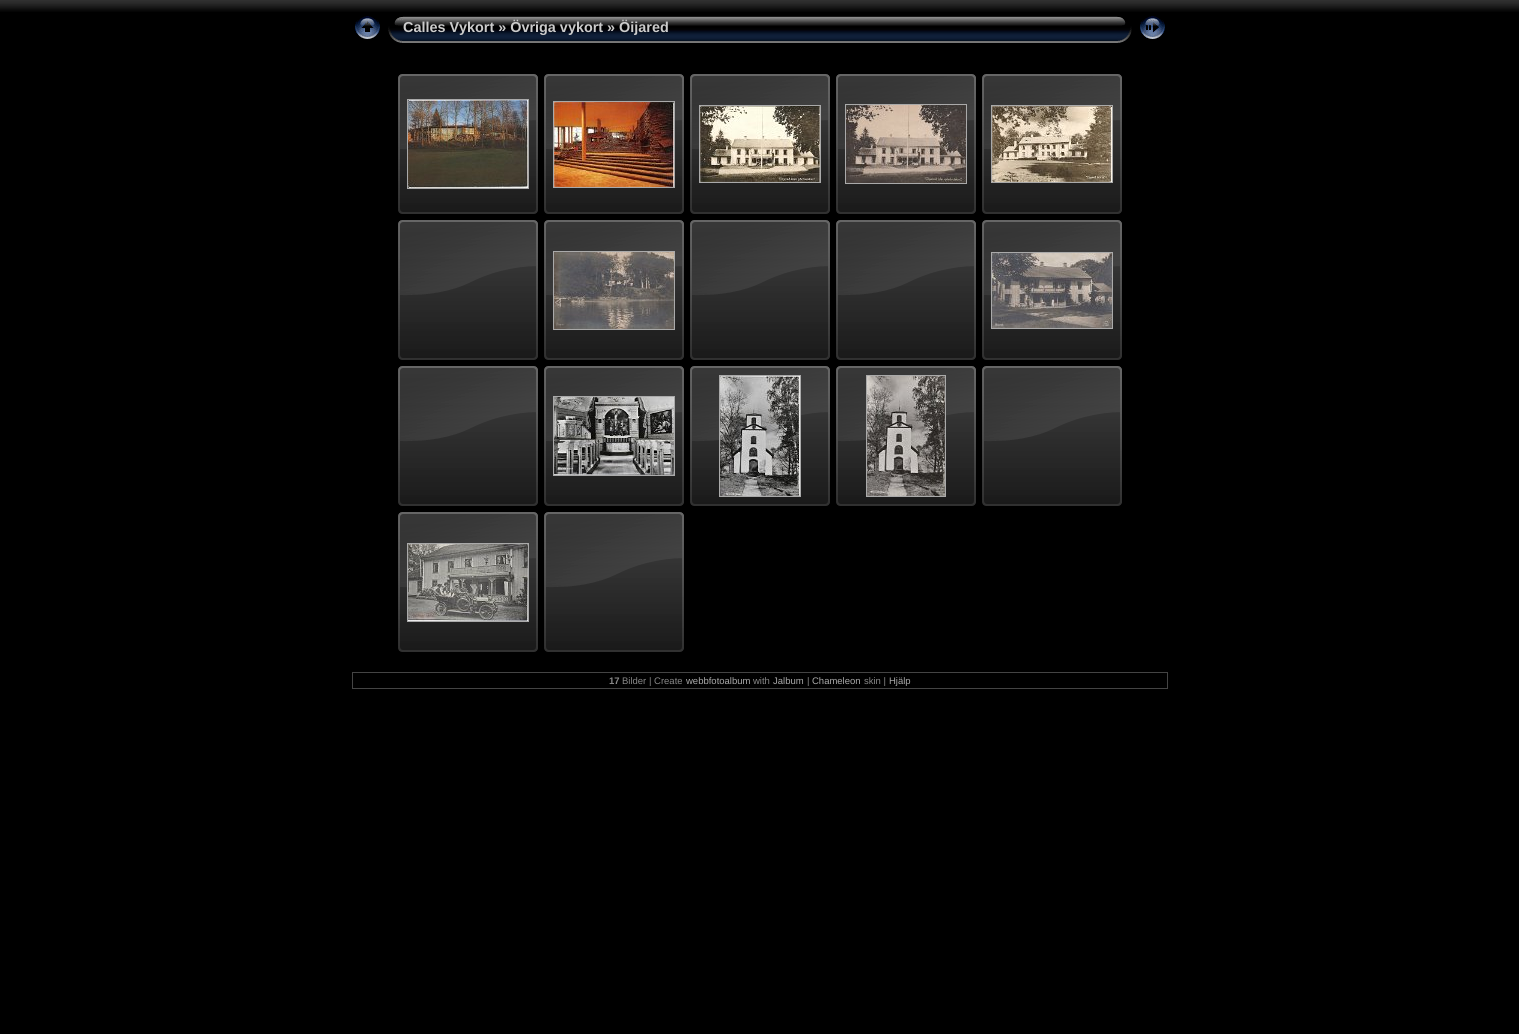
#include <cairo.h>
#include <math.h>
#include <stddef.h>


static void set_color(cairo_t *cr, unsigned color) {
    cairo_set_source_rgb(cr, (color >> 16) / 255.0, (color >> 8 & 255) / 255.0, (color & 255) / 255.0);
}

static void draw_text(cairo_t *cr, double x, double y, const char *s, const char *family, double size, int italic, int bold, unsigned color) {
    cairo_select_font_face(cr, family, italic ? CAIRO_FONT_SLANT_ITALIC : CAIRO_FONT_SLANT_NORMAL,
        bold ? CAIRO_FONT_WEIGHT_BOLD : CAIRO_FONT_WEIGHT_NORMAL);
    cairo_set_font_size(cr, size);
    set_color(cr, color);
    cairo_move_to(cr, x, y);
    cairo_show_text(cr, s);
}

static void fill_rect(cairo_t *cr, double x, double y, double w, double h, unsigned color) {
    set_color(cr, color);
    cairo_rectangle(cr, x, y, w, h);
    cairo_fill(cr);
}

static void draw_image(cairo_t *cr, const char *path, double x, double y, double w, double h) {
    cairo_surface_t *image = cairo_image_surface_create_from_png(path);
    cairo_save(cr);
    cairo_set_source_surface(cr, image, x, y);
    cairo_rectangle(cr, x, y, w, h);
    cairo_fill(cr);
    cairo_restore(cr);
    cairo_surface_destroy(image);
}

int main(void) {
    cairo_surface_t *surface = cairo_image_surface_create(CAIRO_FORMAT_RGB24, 1519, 1034);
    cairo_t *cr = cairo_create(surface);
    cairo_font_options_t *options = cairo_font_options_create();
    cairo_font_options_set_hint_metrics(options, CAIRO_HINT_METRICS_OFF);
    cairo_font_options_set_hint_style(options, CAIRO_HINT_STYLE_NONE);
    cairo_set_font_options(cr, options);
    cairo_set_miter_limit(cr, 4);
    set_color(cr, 0x000000);
    cairo_paint(cr);
    draw_image(cr, "assets/img1.png", 0, 0, 1519, 12);
    draw_image(cr, "assets/img2.png", 355, 16, 25, 23);
    draw_image(cr, "assets/img3.png", 388, 16, 15, 27);
    draw_image(cr, "assets/img4.png", 403, 16, 714, 27);
    draw_text(cr, 403, 32, "Calles Vykort » Övriga vykort » Öijared", "Liberation Sans", 14.4, 0, 1, 0xCCCCCC);
    draw_image(cr, "assets/img5.png", 1117, 16, 15, 27);
    draw_image(cr, "assets/img6.png", 1140, 16, 25, 23);
    draw_image(cr, "assets/img7.png", 398, 74, 140, 140);
    cairo_rectangle(cr, 407.5, 99.5, 121, 89);
    set_color(cr, 0xAAAAAA);
    cairo_set_line_width(cr, 1);
    cairo_stroke(cr);
    draw_image(cr, "assets/img8.png", 408, 100, 120, 88);
    draw_image(cr, "assets/img7.png", 544, 74, 140, 140);
    cairo_rectangle(cr, 553.5, 101.5, 121, 86);
    cairo_stroke(cr);
    draw_image(cr, "assets/img9.png", 554, 102, 120, 85);
    draw_image(cr, "assets/img7.png", 690, 74, 140, 140);
    cairo_rectangle(cr, 699.5, 105.5, 121, 77);
    cairo_stroke(cr);
    draw_image(cr, "assets/img10.png", 700, 106, 120, 76);
    draw_image(cr, "assets/img7.png", 836, 74, 140, 140);
    cairo_rectangle(cr, 845.5, 104.5, 121, 79);
    cairo_stroke(cr);
    draw_image(cr, "assets/img11.png", 846, 105, 120, 78);
    draw_image(cr, "assets/img7.png", 982, 74, 140, 140);
    cairo_rectangle(cr, 991.5, 105.5, 121, 77);
    cairo_stroke(cr);
    draw_image(cr, "assets/img12.png", 992, 106, 120, 76);
    draw_image(cr, "assets/img7.png", 398, 220, 140, 140);
    draw_image(cr, "assets/img7.png", 544, 220, 140, 140);
    cairo_rectangle(cr, 553.5, 251.5, 121, 78);
    cairo_stroke(cr);
    draw_image(cr, "assets/img13.png", 554, 252, 120, 77);
    draw_image(cr, "assets/img7.png", 690, 220, 140, 140);
    draw_image(cr, "assets/img7.png", 836, 220, 140, 140);
    draw_image(cr, "assets/img7.png", 982, 220, 140, 140);
    cairo_rectangle(cr, 991.5, 252.5, 121, 76);
    cairo_stroke(cr);
    draw_image(cr, "assets/img14.png", 992, 253, 120, 75);
    draw_image(cr, "assets/img7.png", 398, 366, 140, 140);
    draw_image(cr, "assets/img7.png", 544, 366, 140, 140);
    cairo_rectangle(cr, 553.5, 396.5, 121, 79);
    cairo_stroke(cr);
    draw_image(cr, "assets/img15.png", 554, 397, 120, 78);
    draw_image(cr, "assets/img7.png", 690, 366, 140, 140);
    cairo_rectangle(cr, 719.5, 375.5, 81, 121);
    cairo_stroke(cr);
    draw_image(cr, "assets/img16.png", 720, 376, 80, 120);
    draw_image(cr, "assets/img7.png", 836, 366, 140, 140);
    cairo_rectangle(cr, 866.5, 375.5, 79, 121);
    cairo_stroke(cr);
    draw_image(cr, "assets/img17.png", 867, 376, 78, 120);
    draw_image(cr, "assets/img7.png", 982, 366, 140, 140);
    draw_image(cr, "assets/img7.png", 398, 512, 140, 140);
    cairo_rectangle(cr, 407.5, 543.5, 121, 78);
    cairo_stroke(cr);
    draw_image(cr, "assets/img18.png", 408, 544, 120, 77);
    draw_image(cr, "assets/img7.png", 544, 512, 140, 140);
    fill_rect(cr, 352, 672, 816, 1, 0x444444);
    fill_rect(cr, 1167, 672, 1, 17, 0x444444);
    fill_rect(cr, 352, 688, 816, 1, 0x444444);
    fill_rect(cr, 352, 672, 1, 17, 0x444444);
    draw_text(cr, 609, 684, "17", "Liberation Sans", 9.5, 0, 1, 0x888888);
    draw_text(cr, 622, 684, "Bilder | Create", "Liberation Sans", 9.5, 0, 0, 0x888888);
    draw_text(cr, 686, 684, "webbfotoalbum", "Liberation Sans", 9.5, 0, 0, 0xAAAAAA);
    draw_text(cr, 753, 684, "with", "Liberation Sans", 9.5, 0, 0, 0x888888);
    draw_text(cr, 773, 684, "Jalbum", "Liberation Sans", 9.5, 0, 0, 0xAAAAAA);
    draw_text(cr, 807, 684, "|", "Liberation Sans", 9.5, 0, 0, 0x888888);
    draw_text(cr, 812, 684, "Chameleon", "Liberation Sans", 9.5, 0, 0, 0xAAAAAA);
    draw_text(cr, 864, 684, "skin |", "Liberation Sans", 9.5, 0, 0, 0x888888);
    draw_text(cr, 889, 684, "Hjälp", "Liberation Sans", 9.5, 0, 0, 0xAAAAAA);
    cairo_surface_write_to_png(surface, "output.png");
    cairo_font_options_destroy(options);
    cairo_destroy(cr);
    cairo_surface_destroy(surface);
    return 0;
}
